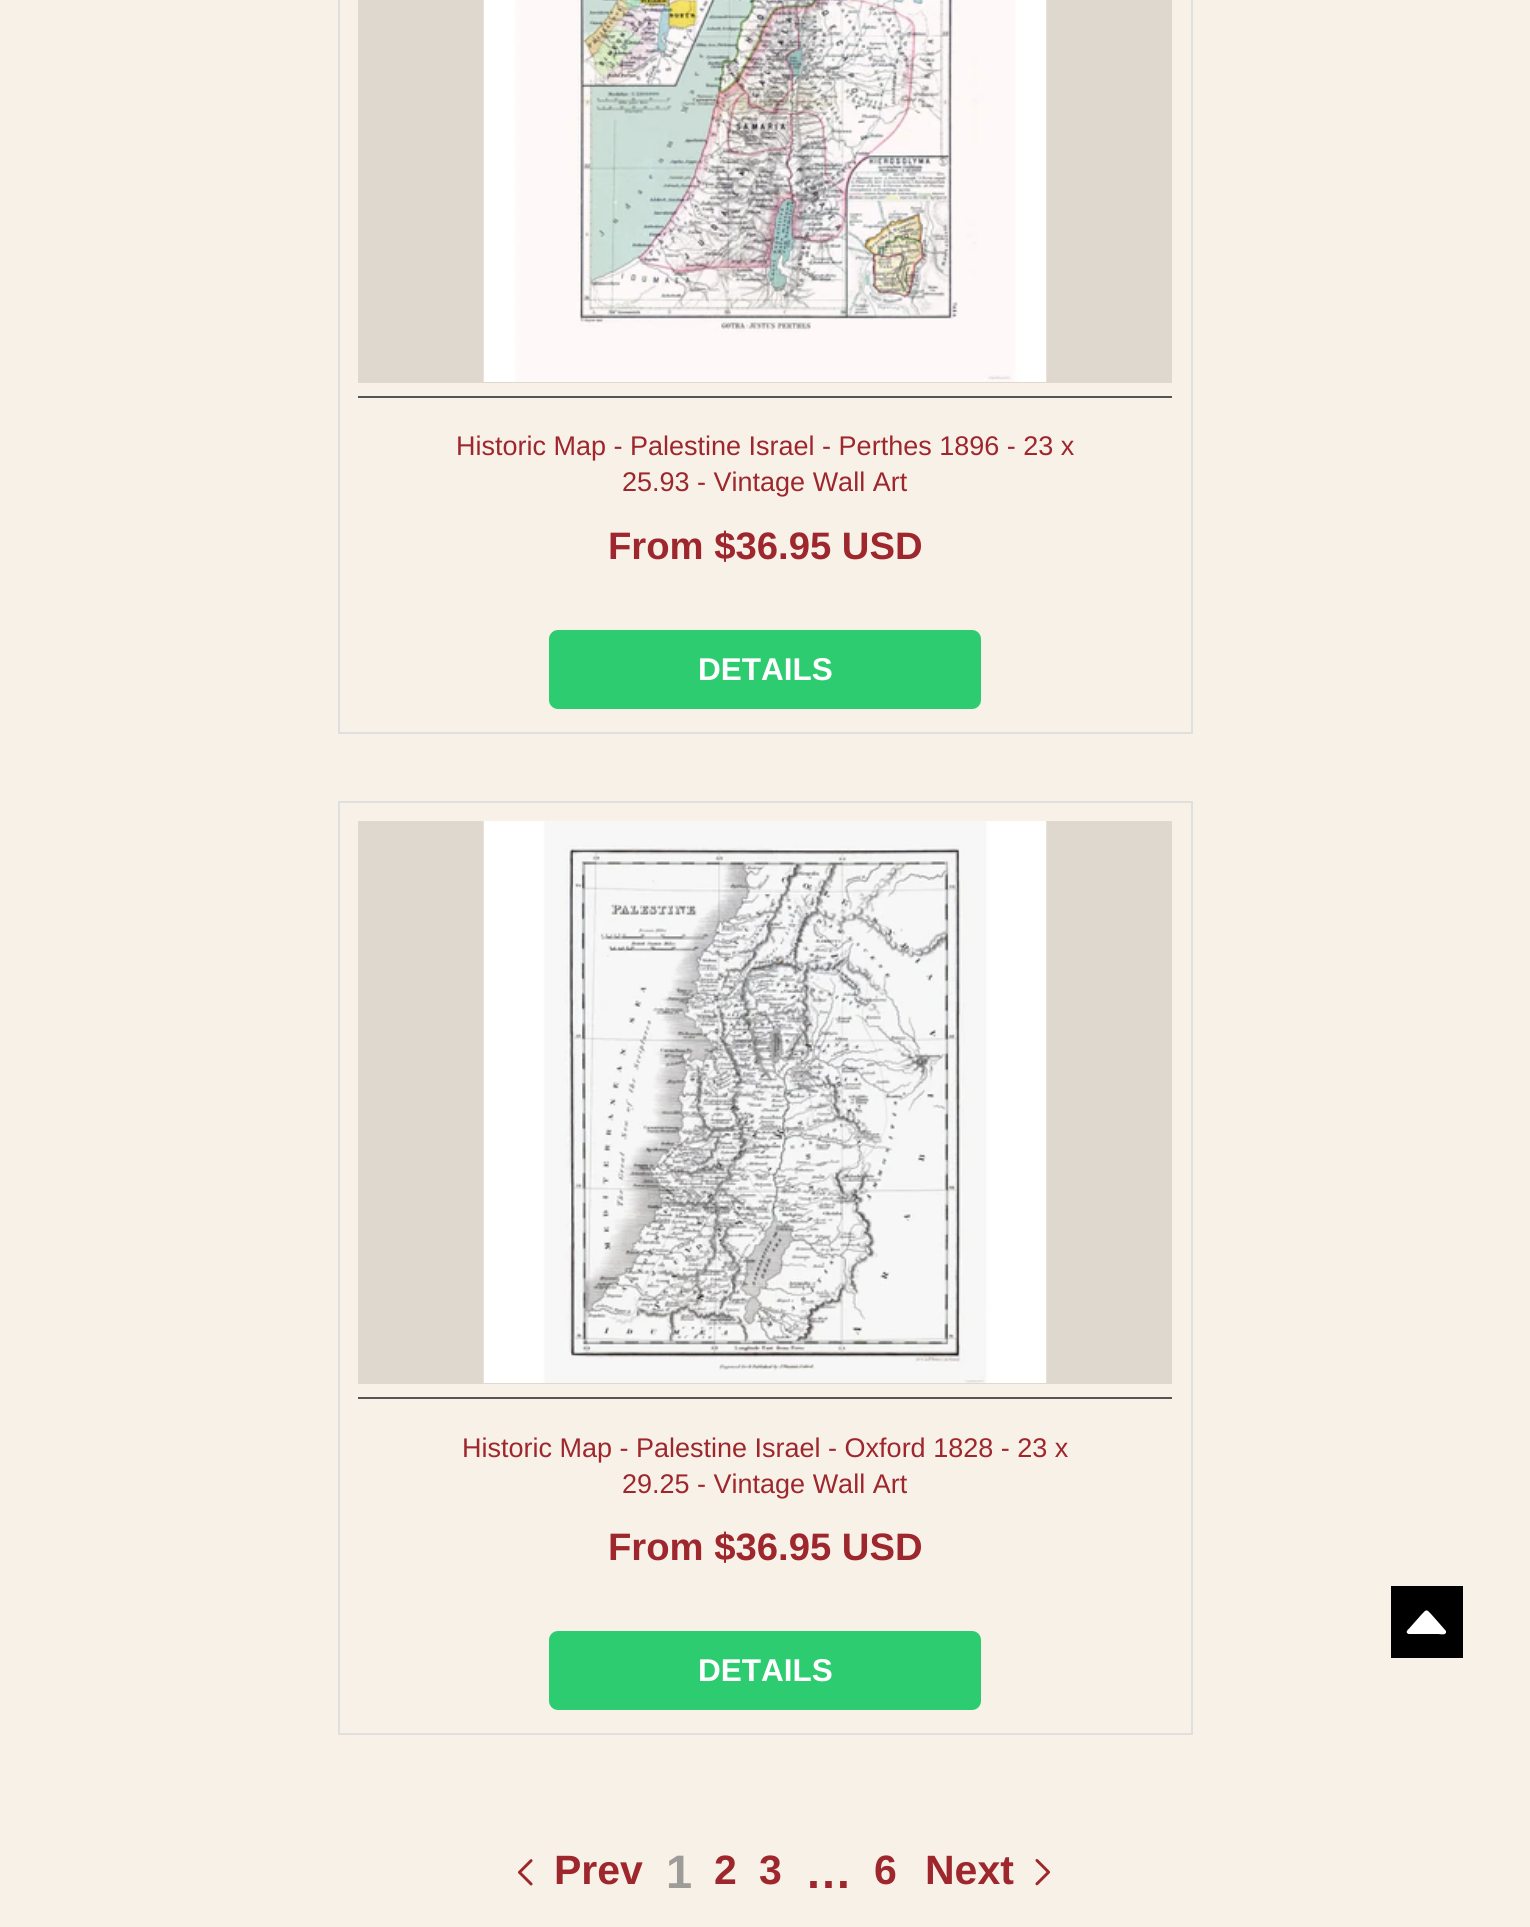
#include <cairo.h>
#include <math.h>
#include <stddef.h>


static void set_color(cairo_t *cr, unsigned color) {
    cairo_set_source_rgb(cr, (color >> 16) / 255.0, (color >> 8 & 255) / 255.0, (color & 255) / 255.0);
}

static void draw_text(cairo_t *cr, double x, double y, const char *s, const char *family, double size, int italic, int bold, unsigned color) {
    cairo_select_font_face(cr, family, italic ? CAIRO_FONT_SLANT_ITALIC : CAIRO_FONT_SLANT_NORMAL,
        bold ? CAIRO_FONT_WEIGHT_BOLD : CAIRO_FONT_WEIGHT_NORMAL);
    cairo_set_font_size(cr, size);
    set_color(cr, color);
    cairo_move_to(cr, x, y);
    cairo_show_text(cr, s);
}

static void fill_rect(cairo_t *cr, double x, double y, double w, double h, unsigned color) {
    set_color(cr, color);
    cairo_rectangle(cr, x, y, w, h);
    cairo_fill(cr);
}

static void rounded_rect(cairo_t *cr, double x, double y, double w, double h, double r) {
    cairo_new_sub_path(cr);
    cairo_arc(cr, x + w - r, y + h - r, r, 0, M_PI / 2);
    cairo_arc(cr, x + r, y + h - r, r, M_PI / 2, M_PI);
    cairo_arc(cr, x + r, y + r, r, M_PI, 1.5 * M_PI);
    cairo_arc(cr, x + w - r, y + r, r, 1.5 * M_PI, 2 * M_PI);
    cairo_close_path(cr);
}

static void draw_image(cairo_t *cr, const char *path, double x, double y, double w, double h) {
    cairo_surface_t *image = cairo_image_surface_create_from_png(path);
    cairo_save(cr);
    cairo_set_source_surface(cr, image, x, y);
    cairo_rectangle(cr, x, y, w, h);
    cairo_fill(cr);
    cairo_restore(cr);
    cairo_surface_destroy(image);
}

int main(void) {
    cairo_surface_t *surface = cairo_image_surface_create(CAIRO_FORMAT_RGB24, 1530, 1927);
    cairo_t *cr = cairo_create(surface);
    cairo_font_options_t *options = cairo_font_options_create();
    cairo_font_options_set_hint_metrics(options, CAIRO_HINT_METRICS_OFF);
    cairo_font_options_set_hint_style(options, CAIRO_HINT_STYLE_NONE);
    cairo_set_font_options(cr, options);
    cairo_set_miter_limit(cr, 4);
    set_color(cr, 0xF8F1E8);
    cairo_paint(cr);
    cairo_rectangle(cr, 339, -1, 853, 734);
    set_color(cr, 0xDFDFDF);
    cairo_stroke(cr);
    fill_rect(cr, 358, 0, 814, 383, 0xDFD8CF);
    draw_image(cr, "assets/img1.png", 483, 0, 564, 382);
    fill_rect(cr, 358, 396, 814, 2, 0x555555);
    draw_text(cr, 456, 455, "Historic Map - Palestine Israel - Perthes 1896 - 23 x", "Liberation Sans", 27, 0, 0, 0x9E272D);
    draw_text(cr, 622, 491, "25.93 - Vintage Wall Art", "Liberation Sans", 27, 0, 0, 0x9E272D);
    draw_text(cr, 608, 559, "From $36.95 USD", "Liberation Sans", 38.25, 0, 1, 0x9E272D);
    set_color(cr, 0x2ECC71);
    rounded_rect(cr, 549, 630, 432, 79, 9);
    cairo_fill(cr);
    draw_text(cr, 698, 680, "DETAILS", "Liberation Sans", 31.5, 0, 1, 0xFFFFFF);
    cairo_rectangle(cr, 339, 802, 853, 932);
    set_color(cr, 0xDFDFDF);
    cairo_stroke(cr);
    fill_rect(cr, 358, 821, 814, 563, 0xDFD8CF);
    draw_image(cr, "assets/img2.png", 483, 821, 564, 562);
    fill_rect(cr, 358, 1397, 814, 2, 0x555555);
    draw_text(cr, 462, 1457, "Historic Map - Palestine Israel - Oxford 1828 - 23 x", "Liberation Sans", 27, 0, 0, 0x9E272D);
    draw_text(cr, 622, 1493, "29.25 - Vintage Wall Art", "Liberation Sans", 27, 0, 0, 0x9E272D);
    draw_text(cr, 608, 1560, "From $36.95 USD", "Liberation Sans", 38.25, 0, 1, 0x9E272D);
    set_color(cr, 0x2ECC71);
    rounded_rect(cr, 549, 1631, 432, 79, 9);
    cairo_fill(cr);
    draw_text(cr, 698, 1681, "DETAILS", "Liberation Sans", 31.5, 0, 1, 0xFFFFFF);
    draw_image(cr, "assets/img3.png", 518, 1859, 15, 27);
    draw_text(cr, 554, 1884, "Prev", "Liberation Sans", 41, 0, 1, 0x9E272D);
    draw_text(cr, 666, 1888, "1", "Liberation Sans", 47, 0, 1, 0x9E9C99);
    draw_text(cr, 714, 1884, "2", "Liberation Sans", 41, 0, 1, 0x9E272D);
    draw_text(cr, 759, 1884, "3", "Liberation Sans", 41, 0, 1, 0x9E272D);
    draw_text(cr, 805, 1888, "…", "Liberation Sans", 47, 0, 1, 0x9E272D);
    draw_text(cr, 874, 1884, "6", "Liberation Sans", 41, 0, 1, 0x9E272D);
    draw_text(cr, 925, 1884, "Next", "Liberation Sans", 41, 0, 1, 0x9E272D);
    draw_image(cr, "assets/img4.png", 1035, 1859, 16, 27);
    fill_rect(cr, 1391, 1586, 72, 72, 0x000000);
    set_color(cr, 0xFFFFFF);
    cairo_new_path(cr);
    cairo_move_to(cr, 1446, 1631);
    cairo_line_to(cr, 1431.5, 1614.5);
    cairo_curve_to(cr, 1426.5, 1609, 1426.5, 1609, 1421.5, 1614.5);
    cairo_line_to(cr, 1410, 1627.5);
    cairo_curve_to(cr, 1409.5, 1628.5, 1405.5, 1631, 1407, 1633);
    cairo_line_to(cr, 1408.5, 1634);
    cairo_line_to(cr, 1438.5, 1634);
    cairo_curve_to(cr, 1439, 1634, 1445.5, 1635.5, 1446, 1632.5);
    cairo_close_path(cr);
    cairo_fill(cr);
    cairo_surface_write_to_png(surface, "output.png");
    cairo_font_options_destroy(options);
    cairo_destroy(cr);
    cairo_surface_destroy(surface);
    return 0;
}
